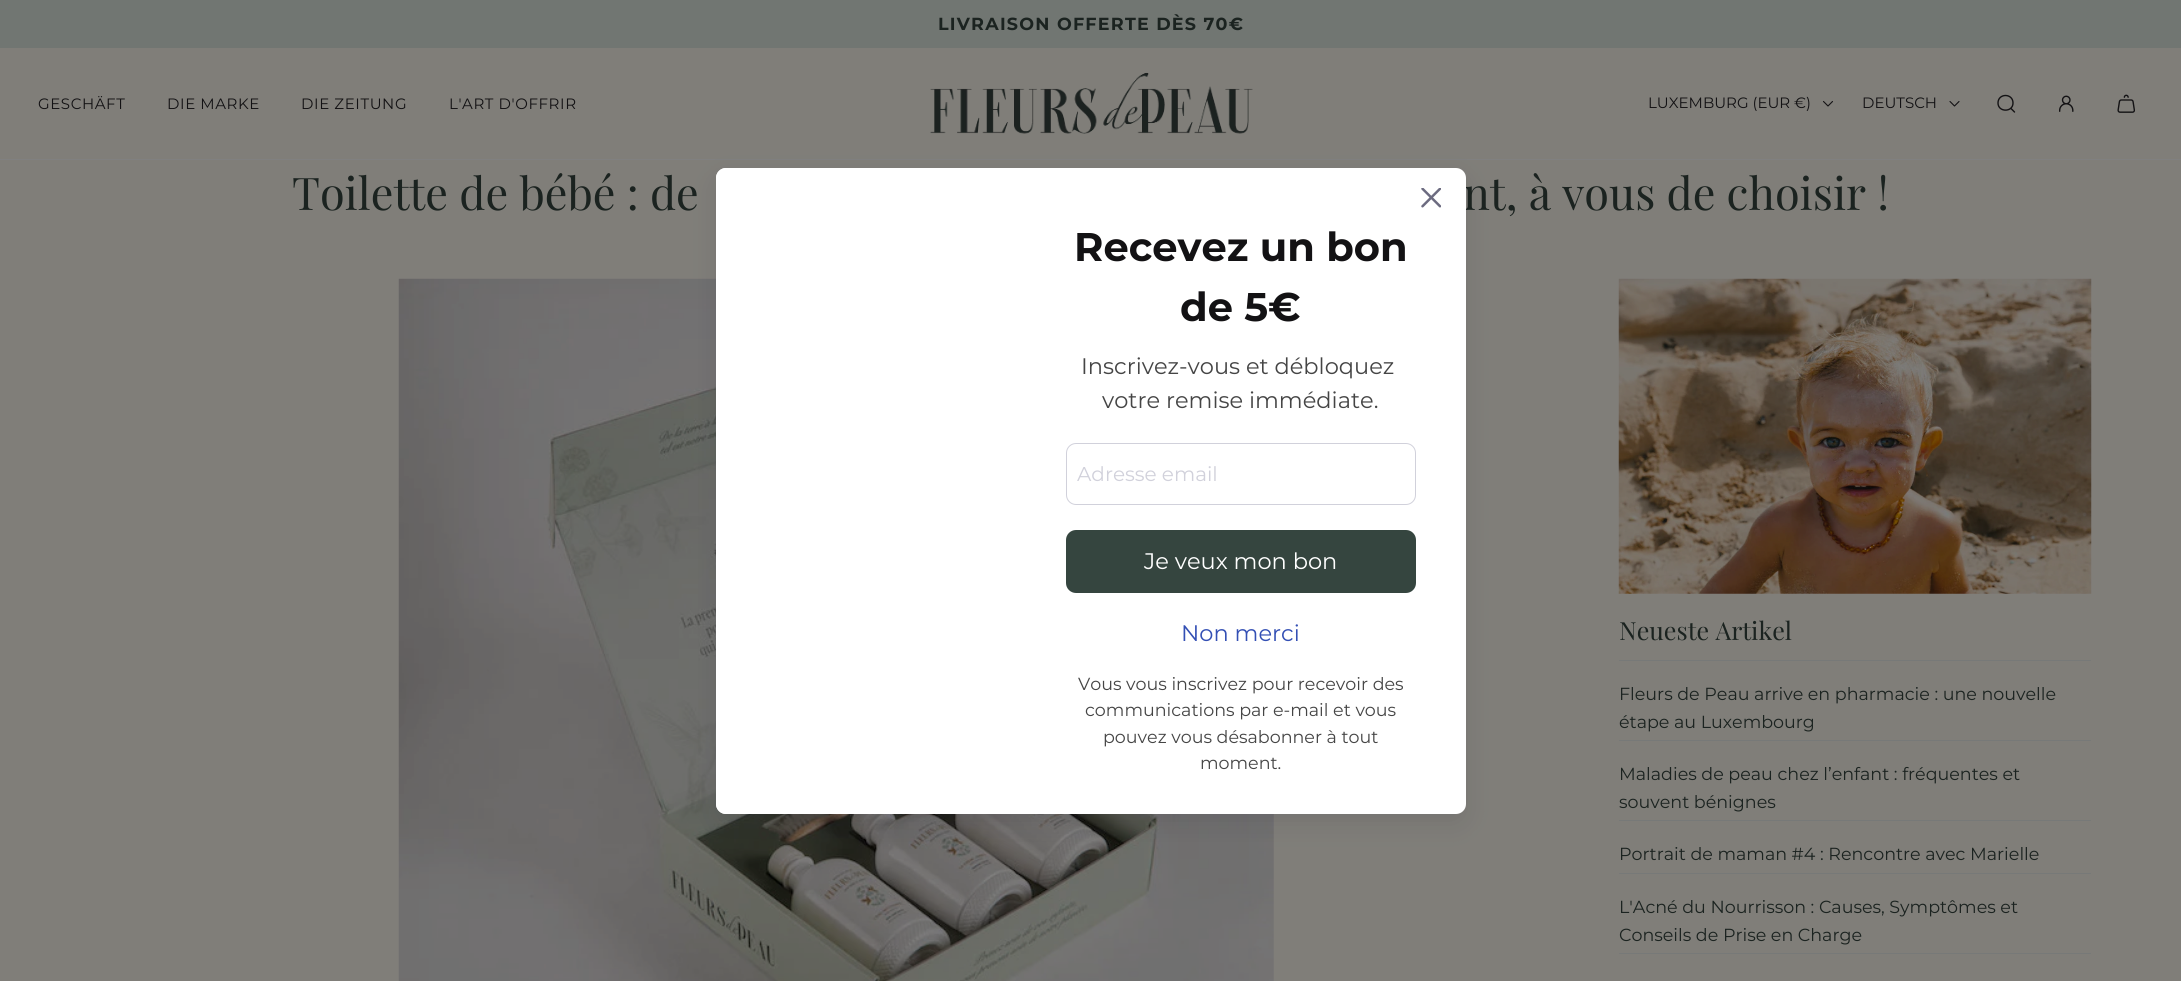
#include <cairo.h>
#include <math.h>
#include <stddef.h>


static void set_color(cairo_t *cr, unsigned color) {
    cairo_set_source_rgb(cr, (color >> 16) / 255.0, (color >> 8 & 255) / 255.0, (color & 255) / 255.0);
}

static void draw_text(cairo_t *cr, double x, double y, const char *s, const char *family, double size, int italic, int bold, unsigned color) {
    cairo_select_font_face(cr, family, italic ? CAIRO_FONT_SLANT_ITALIC : CAIRO_FONT_SLANT_NORMAL,
        bold ? CAIRO_FONT_WEIGHT_BOLD : CAIRO_FONT_WEIGHT_NORMAL);
    cairo_set_font_size(cr, size);
    set_color(cr, color);
    cairo_move_to(cr, x, y);
    cairo_show_text(cr, s);
}

static void draw_spaced(cairo_t *cr, double x, double y, const char *s, double letter, double word) {
    cairo_move_to(cr, x, y);
    while (*s) {
        char ch[5] = {0};
        int n = 0;
        do ch[n++] = *s++; while ((*s & 0xC0) == 0x80);
        cairo_show_text(cr, ch);
        cairo_rel_move_to(cr, letter + word * (*ch == ' '), 0);
    }
}

static void fill_rect(cairo_t *cr, double x, double y, double w, double h, unsigned color) {
    set_color(cr, color);
    cairo_rectangle(cr, x, y, w, h);
    cairo_fill(cr);
}

static void rounded_rect(cairo_t *cr, double x, double y, double w, double h, double r) {
    cairo_new_sub_path(cr);
    cairo_arc(cr, x + w - r, y + h - r, r, 0, M_PI / 2);
    cairo_arc(cr, x + r, y + h - r, r, M_PI / 2, M_PI);
    cairo_arc(cr, x + r, y + r, r, M_PI, 1.5 * M_PI);
    cairo_arc(cr, x + w - r, y + r, r, 1.5 * M_PI, 2 * M_PI);
    cairo_close_path(cr);
}

static void draw_shadow(cairo_t *cr, double x, double y, double w, double h, double r, double blur, double alpha) {
    cairo_push_group_with_content(cr, CAIRO_CONTENT_ALPHA);
    cairo_set_operator(cr, CAIRO_OPERATOR_SOURCE);
    for (int i = 15; i >= -15 && fmin(w, h) + blur * i / 3 > 0; i -= 2) {
        double e = blur * i / 6;
        cairo_set_source_rgba(cr, 0, 0, 0, alpha * erfc((i - 1) / 8.5) / 2);
        rounded_rect(cr, x - e, y - e, w + 2 * e, h + 2 * e, fmax(0, fmin(r + e + blur * .6, fmin(w, h) / 2 + e)));
        cairo_fill(cr);
    }
    cairo_pattern_t *soft = cairo_pop_group(cr);
    cairo_mask(cr, soft);
    cairo_pattern_destroy(soft);
}

static void draw_image(cairo_t *cr, const char *path, double x, double y, double w, double h) {
    cairo_surface_t *image = cairo_image_surface_create_from_png(path);
    cairo_save(cr);
    cairo_set_source_surface(cr, image, x, y);
    cairo_rectangle(cr, x, y, w, h);
    cairo_fill(cr);
    cairo_restore(cr);
    cairo_surface_destroy(image);
}

int main(void) {
    cairo_surface_t *surface = cairo_image_surface_create(CAIRO_FORMAT_RGB24, 2181, 981);
    cairo_t *cr = cairo_create(surface);
    cairo_font_options_t *options = cairo_font_options_create();
    cairo_font_options_set_hint_metrics(options, CAIRO_HINT_METRICS_OFF);
    cairo_font_options_set_hint_style(options, CAIRO_HINT_STYLE_NONE);
    cairo_set_font_options(cr, options);
    cairo_set_miter_limit(cr, 4);
    set_color(cr, 0x807E79);
    cairo_paint(cr);
    fill_rect(cr, 0, 0, 2181, 48, 0x717672);
    cairo_select_font_face(cr, "Montserrat", CAIRO_FONT_SLANT_NORMAL, CAIRO_FONT_WEIGHT_BOLD);
    cairo_set_font_size(cr, 17.5);
    set_color(cr, 0x1B2320);
    draw_spaced(cr, 938, 30, "LIVRAISON OFFERTE DÈS 70€", 1.25, 0);
    fill_rect(cr, 0, 159, 2181, 1, 0x808080);
    cairo_select_font_face(cr, "Montserrat", CAIRO_FONT_SLANT_NORMAL, CAIRO_FONT_WEIGHT_NORMAL);
    cairo_set_font_size(cr, 15);
    set_color(cr, 0x131214);
    draw_spaced(cr, 38, 109, "GESCHÄFT", 0.6, 0);
    draw_spaced(cr, 167, 109, "DIE MARKE", 0.6, 0);
    draw_spaced(cr, 301, 109, "DIE ZEITUNG", 0.6, 0);
    draw_spaced(cr, 449, 109, "L'ART D'OFFRIR", 0.6, 0);
    draw_image(cr, "assets/img1.png", 930, 72, 323, 62);
    draw_text(cr, 1648, 108, "LUXEMBURG (EUR €)", "Montserrat", 15, 0, 0, 0x131214);
    cairo_new_path(cr);
    cairo_move_to(cr, 1823.5, 101.5);
    cairo_line_to(cr, 1828, 106);
    cairo_line_to(cr, 1832.5, 101.5);
    cairo_set_line_width(cr, 1.1);
    cairo_set_line_cap(cr, CAIRO_LINE_CAP_ROUND);
    cairo_set_line_join(cr, CAIRO_LINE_JOIN_ROUND);
    cairo_stroke(cr);
    draw_text(cr, 1862, 108, "DEUTSCH", "Montserrat", 15, 0, 0, 0x131214);
    cairo_new_path(cr);
    cairo_move_to(cr, 1950, 101.5);
    cairo_line_to(cr, 1954.5, 106);
    cairo_line_to(cr, 1959, 101.5);
    cairo_stroke(cr);
    cairo_new_path(cr);
    cairo_move_to(cr, 2011, 108.5);
    cairo_line_to(cr, 2014.5, 112);
    cairo_move_to(cr, 1998, 103);
    cairo_curve_to(cr, 1998, 112.5, 2013, 112.5, 2013, 103);
    cairo_curve_to(cr, 2013, 93, 1998, 93, 1998, 103);
    cairo_close_path(cr);
    cairo_set_line_width(cr, 1.4);
    cairo_stroke(cr);
    draw_image(cr, "assets/img2.png", 2059, 95, 15, 17);
    draw_image(cr, "assets/img3.png", 2117, 94, 18, 19);
    draw_text(cr, 292, 210, "Toilette de bébé : de", "Playfair Display", 45, 0, 0, 0x1B2320);
    draw_text(cr, 1463, 210, "nt, à vous de choisir !", "Playfair Display", 45, 0, 0, 0x1B2320);
    draw_image(cr, "assets/img4.png", 398, 278, 876, 703);
    draw_image(cr, "assets/img5.png", 1618, 278, 474, 316);
    draw_text(cr, 1619, 640, "Neueste Artikel", "Playfair Display", 25, 0, 0, 0x1B2320);
    fill_rect(cr, 1619, 660, 472, 1, 0x777978);
    draw_text(cr, 1619, 700, "Fleurs de Peau arrive en pharmacie : une nouvelle", "Montserrat", 17.5, 0, 0, 0x1B2320);
    draw_text(cr, 1619, 728, "étape au Luxembourg", "Montserrat", 17.5, 0, 0, 0x1B2320);
    fill_rect(cr, 1619, 740, 472, 1, 0x777978);
    draw_text(cr, 1619, 780, "Maladies de peau chez l’enfant : fréquentes et", "Montserrat", 17.5, 0, 0, 0x1B2320);
    draw_text(cr, 1619, 808, "souvent bénignes", "Montserrat", 17.5, 0, 0, 0x1B2320);
    fill_rect(cr, 1619, 820, 472, 1, 0x777978);
    draw_text(cr, 1619, 860, "Portrait de maman #4 : Rencontre avec Marielle", "Montserrat", 17.5, 0, 0, 0x1B2320);
    fill_rect(cr, 1619, 873, 472, 1, 0x777978);
    draw_text(cr, 1619, 913, "L'Acné du Nourrisson : Causes, Symptômes et", "Montserrat", 17.5, 0, 0, 0x1B2320);
    draw_text(cr, 1619, 941, "Conseils de Prise en Charge", "Montserrat", 17.5, 0, 0, 0x1B2320);
    fill_rect(cr, 1619, 953, 472, 1, 0x777978);
    set_color(cr, 0x121127);
    draw_shadow(cr, 716, 178, 750, 646, 10, 12.5, 0.1);
    set_color(cr, 0xFFFFFF);
    rounded_rect(cr, 716, 168, 750, 646, 10);
    cairo_fill(cr);
    cairo_new_path(cr);
    cairo_move_to(cr, 726, 168);
    cairo_line_to(cr, 1016, 168);
    cairo_line_to(cr, 1016, 814);
    cairo_line_to(cr, 726, 814);
    cairo_curve_to(cr, 720.5, 814, 716, 809.5, 716, 804);
    cairo_line_to(cr, 716, 178);
    cairo_curve_to(cr, 716, 172.5, 720.5, 168, 726, 168);
    cairo_close_path(cr);
    cairo_fill(cr);
    draw_image(cr, "assets/img6.png", 1421, 188, 20, 20);
    draw_text(cr, 1074, 261, "Recevez un bon", "Montserrat", 40, 0, 1, 0x131214);
    draw_text(cr, 1180, 321, "de 5€", "Montserrat", 40, 0, 1, 0x131214);
    draw_text(cr, 1081, 374, "Inscrivez-vous et débloquez", "Montserrat", 22.5, 0, 0, 0x454545);
    draw_text(cr, 1102, 408, "votre remise immédiate.", "Montserrat", 22.5, 0, 0, 0x454545);
    rounded_rect(cr, 1066.5, 443.5, 349, 61, 9.5);
    set_color(cr, 0xD1D1DB);
    cairo_set_line_width(cr, 1);
    cairo_set_line_cap(cr, CAIRO_LINE_CAP_BUTT);
    cairo_set_line_join(cr, CAIRO_LINE_JOIN_MITER);
    cairo_stroke(cr);
    draw_text(cr, 1077, 481, "Adresse email", "Montserrat", 20, 0, 0, 0xD1D1DB);
    set_color(cr, 0x35453F);
    rounded_rect(cr, 1066, 530, 350, 63, 10);
    cairo_fill(cr);
    draw_text(cr, 1144, 569, "Je veux mon bon", "Montserrat", 22.5, 0, 0, 0xFFFFFF);
    draw_text(cr, 1181, 641, "Non merci", "Montserrat", 22.5, 0, 0, 0x334FB4);
    draw_text(cr, 1078, 690, "Vous vous inscrivez pour recevoir des", "Montserrat", 17.5, 0, 0, 0x454545);
    draw_text(cr, 1085, 716, "communications par e-mail et vous", "Montserrat", 17.5, 0, 0, 0x454545);
    draw_text(cr, 1103, 743, "pouvez vous désabonner à tout", "Montserrat", 17.5, 0, 0, 0x454545);
    draw_text(cr, 1200, 769, "moment.", "Montserrat", 17.5, 0, 0, 0x454545);
    cairo_surface_write_to_png(surface, "output.png");
    cairo_font_options_destroy(options);
    cairo_destroy(cr);
    cairo_surface_destroy(surface);
    return 0;
}
